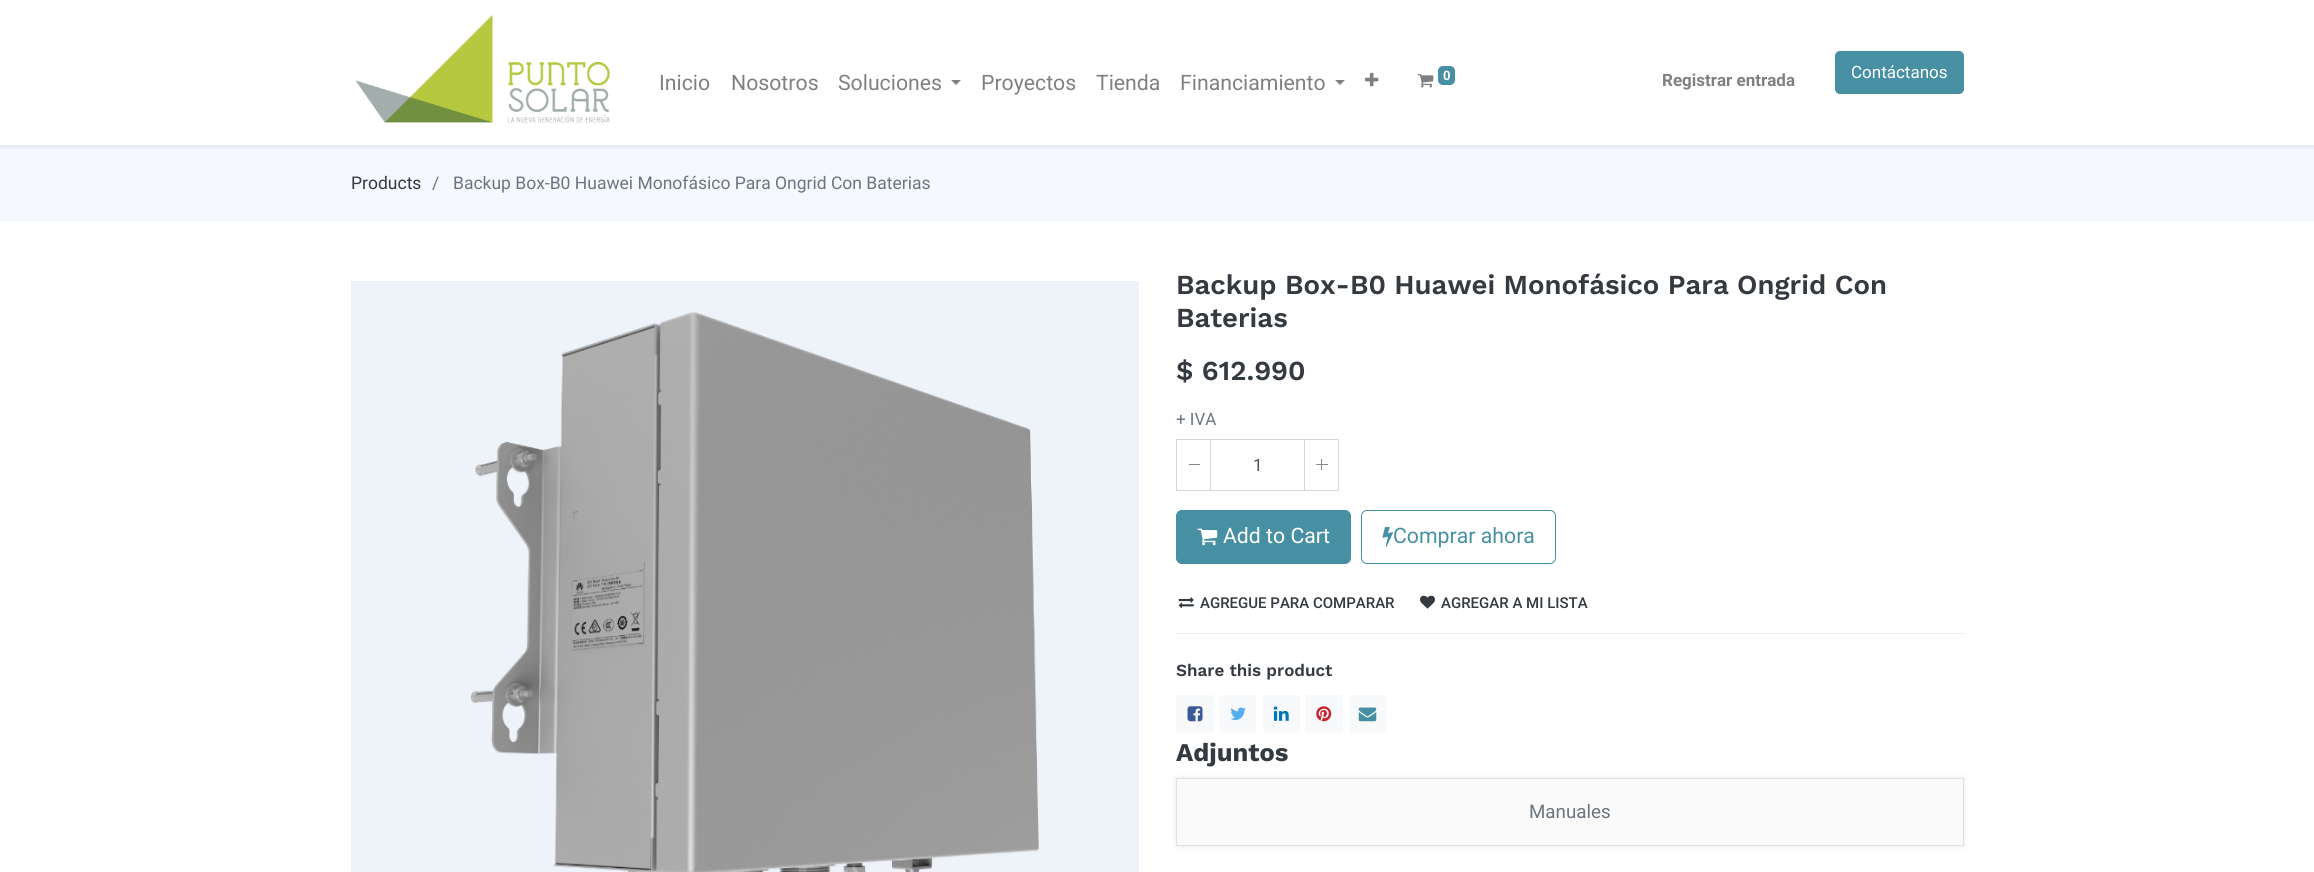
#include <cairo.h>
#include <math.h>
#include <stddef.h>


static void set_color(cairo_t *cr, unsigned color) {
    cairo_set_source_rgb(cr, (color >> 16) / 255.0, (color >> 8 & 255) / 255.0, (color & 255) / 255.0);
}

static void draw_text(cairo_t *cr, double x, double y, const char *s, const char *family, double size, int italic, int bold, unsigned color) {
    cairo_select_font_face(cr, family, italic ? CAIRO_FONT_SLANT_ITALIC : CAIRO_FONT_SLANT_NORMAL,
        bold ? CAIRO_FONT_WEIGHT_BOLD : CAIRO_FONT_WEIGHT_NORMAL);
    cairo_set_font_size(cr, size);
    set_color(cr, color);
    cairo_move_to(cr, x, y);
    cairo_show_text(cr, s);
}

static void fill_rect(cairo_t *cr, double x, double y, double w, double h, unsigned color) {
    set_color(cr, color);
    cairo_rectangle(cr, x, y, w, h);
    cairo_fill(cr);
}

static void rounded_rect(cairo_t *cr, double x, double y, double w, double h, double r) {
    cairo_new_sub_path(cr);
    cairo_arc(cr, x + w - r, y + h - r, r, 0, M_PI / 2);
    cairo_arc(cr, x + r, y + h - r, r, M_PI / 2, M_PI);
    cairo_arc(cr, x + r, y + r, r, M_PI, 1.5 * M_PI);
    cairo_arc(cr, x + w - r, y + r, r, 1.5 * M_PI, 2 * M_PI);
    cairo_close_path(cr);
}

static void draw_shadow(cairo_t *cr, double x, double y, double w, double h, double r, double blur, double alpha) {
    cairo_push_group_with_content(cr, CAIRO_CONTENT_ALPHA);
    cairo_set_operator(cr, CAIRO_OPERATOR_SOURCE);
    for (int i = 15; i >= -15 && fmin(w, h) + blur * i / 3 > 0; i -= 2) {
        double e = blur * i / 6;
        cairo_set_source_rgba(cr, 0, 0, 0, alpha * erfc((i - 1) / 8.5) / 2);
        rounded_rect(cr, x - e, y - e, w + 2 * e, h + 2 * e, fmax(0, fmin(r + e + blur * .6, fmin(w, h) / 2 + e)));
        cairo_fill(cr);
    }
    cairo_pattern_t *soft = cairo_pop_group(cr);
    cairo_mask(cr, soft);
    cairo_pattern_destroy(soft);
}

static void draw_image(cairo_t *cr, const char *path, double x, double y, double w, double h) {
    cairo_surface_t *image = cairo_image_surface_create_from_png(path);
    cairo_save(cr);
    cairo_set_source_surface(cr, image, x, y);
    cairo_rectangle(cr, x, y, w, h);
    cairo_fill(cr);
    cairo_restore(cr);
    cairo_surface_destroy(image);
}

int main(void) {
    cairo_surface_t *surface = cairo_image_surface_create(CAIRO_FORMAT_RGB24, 2314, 872);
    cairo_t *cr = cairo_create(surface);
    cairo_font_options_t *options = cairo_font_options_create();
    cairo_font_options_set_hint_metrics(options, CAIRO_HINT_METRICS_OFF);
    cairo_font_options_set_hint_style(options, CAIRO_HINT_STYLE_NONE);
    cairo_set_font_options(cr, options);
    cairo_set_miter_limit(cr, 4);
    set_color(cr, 0xFFFFFF);
    cairo_paint(cr);
    fill_rect(cr, 0, 145, 2314, 76, 0xF5F9FF);
    cairo_save(cr);
    cairo_rectangle(cr, 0, 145, 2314, 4);
    cairo_clip(cr);
    set_color(cr, 0x000000);
    draw_shadow(cr, 0, 3, 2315, 145, 0, 2.5, 0.07);
    cairo_restore(cr);
    draw_image(cr, "assets/img1.png", 355, 15, 255, 108);
    draw_text(cr, 659, 90, "Inicio", "Roboto", 21.25, 0, 0, 0x808080);
    draw_text(cr, 731, 90, "Nosotros", "Roboto", 21.25, 0, 0, 0x808080);
    draw_text(cr, 838, 90, "Soluciones", "Roboto", 21.25, 0, 0, 0x808080);
    cairo_new_path(cr);
    cairo_move_to(cr, 951, 80);
    cairo_line_to(cr, 961, 80);
    cairo_line_to(cr, 956, 85);
    cairo_close_path(cr);
    cairo_fill(cr);
    draw_text(cr, 981, 90, "Proyectos", "Roboto", 21.25, 0, 0, 0x808080);
    draw_text(cr, 1096, 90, "Tienda", "Roboto", 21.25, 0, 0, 0x808080);
    draw_text(cr, 1180, 90, "Financiamiento", "Roboto", 21.25, 0, 0, 0x808080);
    cairo_new_path(cr);
    cairo_move_to(cr, 1335, 80);
    cairo_line_to(cr, 1345, 80);
    cairo_line_to(cr, 1340, 85);
    cairo_close_path(cr);
    cairo_fill(cr);
    draw_image(cr, "assets/img2.png", 1365, 72, 14, 15);
    draw_image(cr, "assets/img3.png", 1417, 74, 17, 14);
    set_color(cr, 0x478FA2);
    rounded_rect(cr, 1438, 66, 17, 19, 5);
    cairo_fill(cr);
    draw_text(cr, 1443, 80, "0", "Roboto", 13, 0, 1, 0xFFFFFF);
    draw_text(cr, 1662, 86, "Registrar entrada", "Roboto", 17, 0, 1, 0x808080);
    set_color(cr, 0x478FA2);
    rounded_rect(cr, 1835.5, 51.5, 128, 42, 4.5);
    cairo_fill_preserve(cr);
    cairo_set_line_width(cr, 1);
    cairo_stroke(cr);
    draw_text(cr, 1851, 78, "Contáctanos", "Roboto", 17, 0, 0, 0xFFFFFF);
    draw_text(cr, 351, 189, "Products", "Roboto", 17.5, 0, 0, 0x343A40);
    draw_text(cr, 432, 189, "/", "Roboto", 17.5, 0, 0, 0x6C757D);
    draw_text(cr, 453, 189, "Backup Box-B0 Huawei Monofásico Para Ongrid Con Baterias", "Roboto", 17.5, 0, 0, 0x6C757D);
    draw_image(cr, "assets/img4.png", 351, 281, 788, 591);
    draw_text(cr, 1176, 294, "Backup Box-B0 Huawei Monofásico Para Ongrid Con", "Work Sans SemiBold", 27.5, 0, 0, 0x343A40);
    draw_text(cr, 1176, 327, "Baterias", "Work Sans SemiBold", 27.5, 0, 0, 0x343A40);
    draw_text(cr, 1176, 380, "$ 612.990", "Work Sans SemiBold", 27.5, 0, 0, 0x343A40);
    draw_text(cr, 1176, 425, "+ IVA", "Roboto", 17, 0, 0, 0x6C757D);
    cairo_rectangle(cr, 1176.5, 439.5, 162, 51);
    set_color(cr, 0xD7D7D7);
    cairo_stroke(cr);
    fill_rect(cr, 1210, 440, 1, 50, 0xD7D7D7);
    fill_rect(cr, 1189, 464, 11, 1, 0x888888);
    draw_text(cr, 1253, 471, "1", "Roboto", 17, 0, 0, 0x495057);
    fill_rect(cr, 1304, 440, 1, 50, 0xD7D7D7);
    fill_rect(cr, 1316, 464, 12, 1, 0x888888);
    fill_rect(cr, 1321, 459, 1, 11, 0x888888);
    set_color(cr, 0x478FA2);
    rounded_rect(cr, 1176.5, 510.5, 174, 53, 5.5);
    cairo_fill_preserve(cr);
    cairo_stroke(cr);
    draw_image(cr, "assets/img5.png", 1197, 528, 21, 18);
    draw_text(cr, 1223, 543, "Add to Cart", "Roboto", 21.25, 0, 0, 0xFFFFFF);
    rounded_rect(cr, 1361.5, 510.5, 194, 53, 5.5);
    set_color(cr, 0x478FA2);
    cairo_stroke(cr);
    draw_image(cr, "assets/img6.png", 1382, 527, 12, 20);
    draw_text(cr, 1393, 543, "Comprar ahora", "Roboto", 21.25, 0, 0, 0x478FA2);
    fill_rect(cr, 1176, 633, 788, 1, 0xEEEEEE);
    draw_image(cr, "assets/img7.png", 1178, 597, 16, 12);
    draw_text(cr, 1200, 608, "AGREGUE PARA COMPARAR", "Roboto Medium", 15, 0, 0, 0x343A40);
    draw_image(cr, "assets/img8.png", 1420, 595, 15, 14);
    draw_text(cr, 1441, 608, "AGREGAR A MI LISTA", "Roboto Medium", 15, 0, 0, 0x343A40);
    draw_text(cr, 1176, 676, "Share this product", "Work Sans SemiBold", 17, 0, 0, 0x343A40);
    set_color(cr, 0xF8F9FA);
    rounded_rect(cr, 1176, 695, 38, 38, 2.5);
    cairo_fill(cr);
    draw_image(cr, "assets/img9.png", 1187, 706, 16, 16);
    rounded_rect(cr, 1219, 695, 37, 38, 2.5);
    cairo_fill(cr);
    draw_image(cr, "assets/img10.png", 1230, 707, 16, 13);
    rounded_rect(cr, 1263, 695, 37, 38, 2.5);
    cairo_fill(cr);
    draw_image(cr, "assets/img11.png", 1273, 706, 16, 15);
    rounded_rect(cr, 1305, 695, 38, 38, 2.5);
    cairo_fill(cr);
    draw_image(cr, "assets/img12.png", 1316, 706, 16, 16);
    rounded_rect(cr, 1349, 695, 37, 38, 2.5);
    cairo_fill(cr);
    draw_image(cr, "assets/img13.png", 1358, 707, 19, 15);
    draw_text(cr, 1176, 761, "Adjuntos", "Work Sans", 25.5, 0, 1, 0x343A40);
    set_color(cr, 0x000000);
    draw_shadow(cr, 1176, 778, 788, 68, 0, 3, 0.09);
    set_color(cr, 0xFAFAFA);
    cairo_rectangle(cr, 1176.5, 778.5, 787, 67);
    cairo_fill_preserve(cr);
    set_color(cr, 0xE0E0E0);
    cairo_stroke(cr);
    draw_text(cr, 1529, 818, "Manuales", "Roboto", 18.75, 0, 0, 0x6C757D);
    cairo_surface_write_to_png(surface, "output.png");
    cairo_font_options_destroy(options);
    cairo_destroy(cr);
    cairo_surface_destroy(surface);
    return 0;
}
